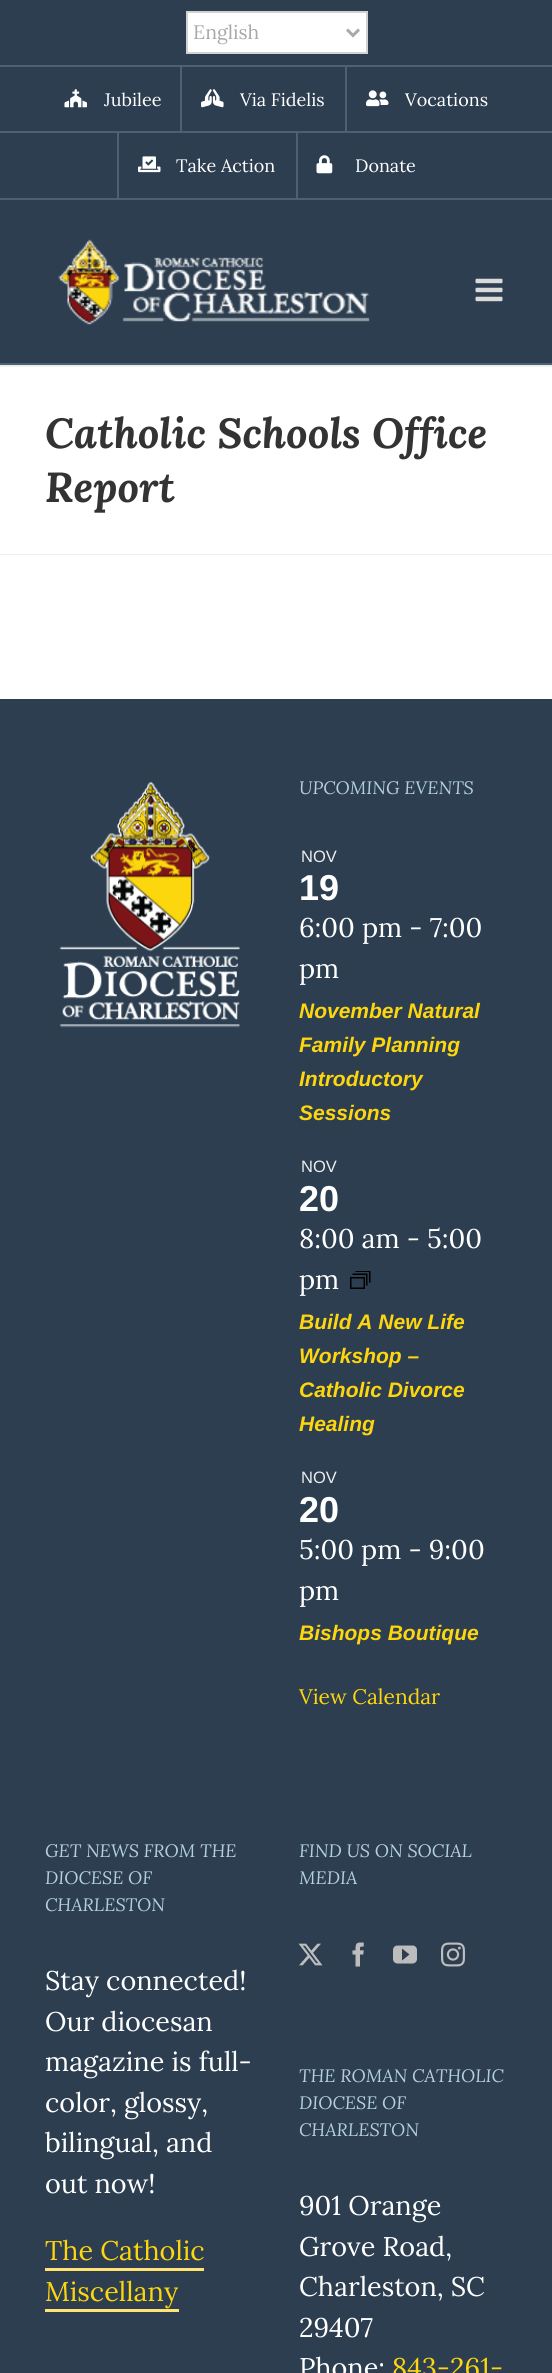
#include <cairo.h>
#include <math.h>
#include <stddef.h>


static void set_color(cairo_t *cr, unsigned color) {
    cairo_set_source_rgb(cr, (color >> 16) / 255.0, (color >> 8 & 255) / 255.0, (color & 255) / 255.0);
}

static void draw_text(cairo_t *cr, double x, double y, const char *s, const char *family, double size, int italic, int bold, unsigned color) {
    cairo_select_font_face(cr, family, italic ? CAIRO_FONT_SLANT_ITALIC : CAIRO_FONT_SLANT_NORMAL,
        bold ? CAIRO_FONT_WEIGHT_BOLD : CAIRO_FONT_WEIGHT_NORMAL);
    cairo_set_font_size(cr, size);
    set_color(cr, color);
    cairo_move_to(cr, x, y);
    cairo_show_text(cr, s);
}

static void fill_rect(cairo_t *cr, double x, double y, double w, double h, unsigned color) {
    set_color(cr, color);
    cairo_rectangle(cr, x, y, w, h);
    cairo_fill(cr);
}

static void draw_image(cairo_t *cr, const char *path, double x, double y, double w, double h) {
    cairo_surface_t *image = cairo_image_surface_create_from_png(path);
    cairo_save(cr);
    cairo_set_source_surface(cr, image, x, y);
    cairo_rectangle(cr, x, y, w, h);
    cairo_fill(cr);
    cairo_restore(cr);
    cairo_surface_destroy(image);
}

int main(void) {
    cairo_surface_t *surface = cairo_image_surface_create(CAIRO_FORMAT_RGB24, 552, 2373);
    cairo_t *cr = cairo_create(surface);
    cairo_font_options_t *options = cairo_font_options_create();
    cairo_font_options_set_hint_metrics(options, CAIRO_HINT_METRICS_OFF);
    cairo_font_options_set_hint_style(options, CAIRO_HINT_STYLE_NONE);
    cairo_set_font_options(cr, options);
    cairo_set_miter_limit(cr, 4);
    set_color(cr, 0xFFFFFF);
    cairo_paint(cr);
    fill_rect(cr, 0, 0, 552, 198, 0x2C3E50);
    fill_rect(cr, 0, 198, 552, 2, 0x4E6172);
    fill_rect(cr, 0, 65, 552, 2, 0x4E6172);
    set_color(cr, 0xFFFFFF);
    cairo_rectangle(cr, 187, 12, 180, 41);
    cairo_fill_preserve(cr);
    set_color(cr, 0xD2D2D2);
    cairo_stroke(cr);
    cairo_new_path(cr);
    cairo_move_to(cr, 347, 29.5);
    cairo_line_to(cr, 353, 35.5);
    cairo_line_to(cr, 359, 29.5);
    set_color(cr, 0xAAA9A9);
    cairo_set_line_width(cr, 3);
    cairo_stroke(cr);
    draw_text(cr, 193, 39, "English", "Lora", 19.5, 0, 0, 0xAAA9A9);
    draw_image(cr, "assets/img1.png", 64, 89, 23, 19);
    draw_text(cr, 104, 106, "Jubilee", "Lora", 18, 0, 0, 0xFFFFFF);
    fill_rect(cr, 180, 66, 2, 66, 0x4E6172);
    draw_image(cr, "assets/img2.png", 201, 89, 23, 19);
    draw_text(cr, 240, 106, "Via Fidelis", "Lora", 18, 0, 0, 0xFFFFFF);
    fill_rect(cr, 345, 66, 2, 66, 0x4E6172);
    draw_image(cr, "assets/img3.png", 366, 90, 23, 17);
    draw_text(cr, 405, 106, "Vocations", "Lora", 18, 0, 0, 0xFFFFFF);
    fill_rect(cr, 117, 132, 2, 66, 0x4E6172);
    fill_rect(cr, 296, 132, 2, 66, 0x4E6172);
    fill_rect(cr, 0, 131, 552, 2, 0x4E6172);
    draw_image(cr, "assets/img4.png", 138, 156, 23, 17);
    draw_text(cr, 176, 172, "Take Action", "Lora", 18, 0, 0, 0xFFFFFF);
    draw_image(cr, "assets/img5.png", 316, 155, 17, 19);
    draw_text(cr, 355, 172, "Donate", "Lora", 18, 0, 0, 0xFFFFFF);
    fill_rect(cr, 0, 200, 552, 163, 0x2C3E50);
    fill_rect(cr, 0, 363, 552, 2, 0x4E6172);
    draw_image(cr, "assets/img6.png", 58, 239, 312, 86);
    draw_image(cr, "assets/img7.png", 475, 278, 28, 24);
    fill_rect(cr, 0, 365, 552, 2, 0xECF0F1);
    fill_rect(cr, 0, 554, 552, 1, 0xECF0F1);
    draw_text(cr, 45, 448, "Catholic Schools Office", "Lora", 42, 1, 1, 0x333333);
    draw_text(cr, 45, 502, "Report", "Lora", 42, 1, 1, 0x333333);
    fill_rect(cr, 0, 699, 552, 1674, 0x2C3E50);
    draw_image(cr, "assets/img8.png", 59, 781, 181, 247);
    draw_text(cr, 299, 794, "UPCOMING EVENTS", "Lora", 18, 1, 0, 0xB3CFE2);
    draw_text(cr, 301, 862, "NOV", "Liberation Sans", 16.5, 0, 0, 0xEEEEEE);
    draw_text(cr, 299, 900, "19", "Liberation Sans", 36, 0, 1, 0xFFFFFF);
    draw_text(cr, 299, 937, "6:00 pm - 7:00", "Lora", 27, 0, 0, 0xFFFFFF);
    draw_text(cr, 299, 978, "pm", "Lora", 27, 0, 0, 0xFFFFFF);
    draw_text(cr, 299, 1018, "November Natural", "Liberation Sans", 21, 1, 1, 0xFDD60F);
    draw_text(cr, 299, 1052, "Family Planning", "Liberation Sans", 21, 1, 1, 0xFDD60F);
    draw_text(cr, 299, 1086, "Introductory", "Liberation Sans", 21, 1, 1, 0xFDD60F);
    draw_text(cr, 299, 1120, "Sessions", "Liberation Sans", 21, 1, 1, 0xFDD60F);
    draw_text(cr, 301, 1172, "NOV", "Liberation Sans", 16.5, 0, 0, 0xEEEEEE);
    draw_text(cr, 299, 1211, "20", "Liberation Sans", 36, 0, 1, 0xFFFFFF);
    draw_text(cr, 299, 1248, "8:00 am - 5:00", "Lora", 27, 0, 0, 0xFFFFFF);
    draw_text(cr, 299, 1289, "pm", "Lora", 27, 0, 0, 0xFFFFFF);
    draw_image(cr, "assets/img9.png", 350, 1271, 21, 18);
    draw_text(cr, 299, 1329, "Build A New Life", "Liberation Sans", 21, 1, 1, 0xFDD60F);
    draw_text(cr, 299, 1363, "Workshop –", "Liberation Sans", 21, 1, 1, 0xFDD60F);
    draw_text(cr, 299, 1397, "Catholic Divorce", "Liberation Sans", 21, 1, 1, 0xFDD60F);
    draw_text(cr, 299, 1431, "Healing", "Liberation Sans", 21, 1, 1, 0xFDD60F);
    draw_text(cr, 301, 1483, "NOV", "Liberation Sans", 16.5, 0, 0, 0xEEEEEE);
    draw_text(cr, 299, 1522, "20", "Liberation Sans", 36, 0, 1, 0xFFFFFF);
    draw_text(cr, 299, 1559, "5:00 pm - 9:00", "Lora", 27, 0, 0, 0xFFFFFF);
    draw_text(cr, 299, 1600, "pm", "Lora", 27, 0, 0, 0xFFFFFF);
    draw_text(cr, 299, 1640, "Bishops Boutique", "Liberation Sans", 21, 1, 1, 0xFDD60F);
    draw_text(cr, 299, 1704, "View Calendar", "Lora", 21, 0, 0, 0xFDD60F);
    draw_text(cr, 45, 1857, "GET NEWS FROM THE", "Lora", 18, 1, 0, 0xB3CFE2);
    draw_text(cr, 45, 1884, "DIOCESE OF", "Lora", 18, 1, 0, 0xB3CFE2);
    draw_text(cr, 45, 1911, "CHARLESTON", "Lora", 18, 1, 0, 0xB3CFE2);
    draw_text(cr, 45, 1990, "Stay connected!", "Lora", 27, 0, 0, 0xFFFFFF);
    draw_text(cr, 45, 2031, "Our diocesan", "Lora", 27, 0, 0, 0xFFFFFF);
    draw_text(cr, 45, 2071, "magazine is full-", "Lora", 27, 0, 0, 0xFFFFFF);
    draw_text(cr, 45, 2112, "color, glossy,", "Lora", 27, 0, 0, 0xFFFFFF);
    draw_text(cr, 45, 2152, "bilingual, and", "Lora", 27, 0, 0, 0xFFFFFF);
    draw_text(cr, 45, 2193, "out now!", "Lora", 27, 0, 0, 0xFFFFFF);
    draw_text(cr, 45, 2260, "The Catholic", "Lora", 27, 0, 0, 0xFDD60F);
    fill_rect(cr, 45, 2268, 159, 3, 0xFFE473);
    draw_text(cr, 45, 2301, "Miscellany", "Lora", 27, 0, 0, 0xFDD60F);
    fill_rect(cr, 45, 2309, 134, 3, 0xFFE473);
    draw_text(cr, 299, 1857, "FIND US ON SOCIAL", "Lora", 18, 1, 0, 0xB3CFE2);
    draw_text(cr, 299, 1884, "MEDIA", "Lora", 18, 1, 0, 0xB3CFE2);
    draw_image(cr, "assets/img10.png", 298, 1943, 25, 23);
    draw_image(cr, "assets/img11.png", 352, 1942, 12, 25);
    draw_image(cr, "assets/img12.png", 393, 1945, 24, 19);
    draw_image(cr, "assets/img13.png", 441, 1942, 24, 25);
    draw_text(cr, 299, 2082, "THE ROMAN CATHOLIC", "Lora", 18, 1, 0, 0xB3CFE2);
    draw_text(cr, 299, 2109, "DIOCESE OF", "Lora", 18, 1, 0, 0xB3CFE2);
    draw_text(cr, 299, 2136, "CHARLESTON", "Lora", 18, 1, 0, 0xB3CFE2);
    draw_text(cr, 299, 2215, "901 Orange", "Lora", 27, 0, 0, 0xFFFFFF);
    draw_text(cr, 299, 2256, "Grove Road,", "Lora", 27, 0, 0, 0xFFFFFF);
    draw_text(cr, 299, 2296, "Charleston, SC", "Lora", 27, 0, 0, 0xFFFFFF);
    draw_text(cr, 299, 2337, "29407", "Lora", 27, 0, 0, 0xFFFFFF);
    draw_text(cr, 299, 2377, "Phone:", "Lora", 27, 0, 0, 0xFFFFFF);
    draw_text(cr, 392, 2377, "843-261-", "Lora", 27, 0, 0, 0xFDD60F);
    cairo_surface_write_to_png(surface, "output.png");
    cairo_font_options_destroy(options);
    cairo_destroy(cr);
    cairo_surface_destroy(surface);
    return 0;
}
